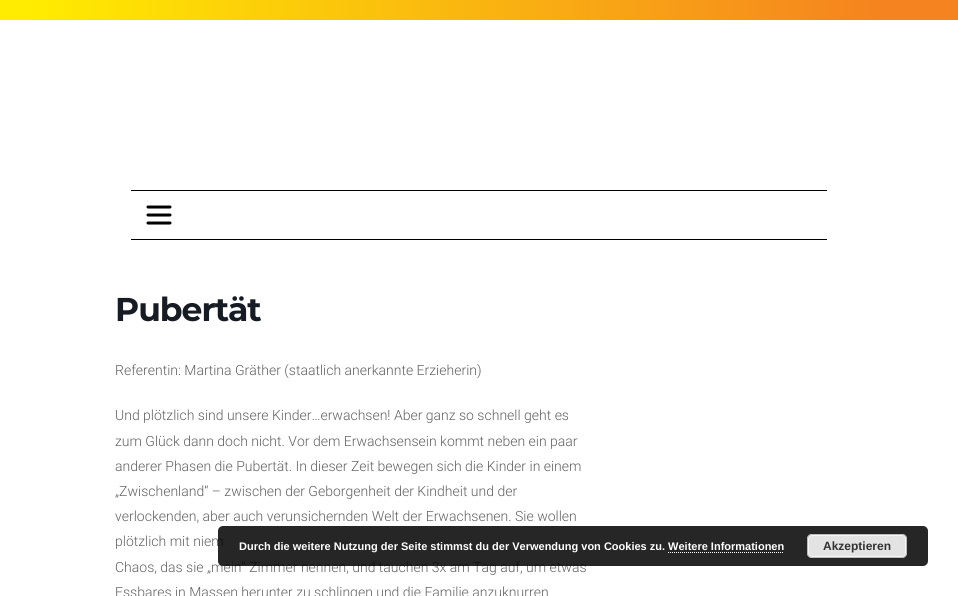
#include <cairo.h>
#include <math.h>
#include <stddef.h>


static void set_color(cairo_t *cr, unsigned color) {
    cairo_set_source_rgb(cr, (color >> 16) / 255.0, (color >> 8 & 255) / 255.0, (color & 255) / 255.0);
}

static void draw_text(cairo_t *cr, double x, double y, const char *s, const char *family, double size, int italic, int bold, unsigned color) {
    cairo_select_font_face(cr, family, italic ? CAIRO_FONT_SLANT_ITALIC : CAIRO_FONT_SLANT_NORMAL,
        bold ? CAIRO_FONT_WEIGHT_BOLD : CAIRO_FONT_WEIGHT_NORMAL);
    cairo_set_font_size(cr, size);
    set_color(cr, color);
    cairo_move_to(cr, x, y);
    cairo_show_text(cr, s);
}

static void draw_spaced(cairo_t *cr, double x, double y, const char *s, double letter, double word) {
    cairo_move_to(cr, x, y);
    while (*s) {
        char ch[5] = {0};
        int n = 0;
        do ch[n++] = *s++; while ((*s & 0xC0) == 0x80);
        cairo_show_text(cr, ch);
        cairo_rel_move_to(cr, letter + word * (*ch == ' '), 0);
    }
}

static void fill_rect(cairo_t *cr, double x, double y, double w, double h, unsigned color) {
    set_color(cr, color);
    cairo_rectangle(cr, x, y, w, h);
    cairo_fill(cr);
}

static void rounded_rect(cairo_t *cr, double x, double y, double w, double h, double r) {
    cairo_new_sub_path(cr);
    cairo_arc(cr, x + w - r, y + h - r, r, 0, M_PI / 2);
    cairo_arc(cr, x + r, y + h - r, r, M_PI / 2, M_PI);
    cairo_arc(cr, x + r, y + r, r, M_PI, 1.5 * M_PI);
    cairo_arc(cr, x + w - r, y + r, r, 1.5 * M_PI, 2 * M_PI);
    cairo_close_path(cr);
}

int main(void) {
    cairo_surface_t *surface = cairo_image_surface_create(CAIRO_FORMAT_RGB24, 958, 596);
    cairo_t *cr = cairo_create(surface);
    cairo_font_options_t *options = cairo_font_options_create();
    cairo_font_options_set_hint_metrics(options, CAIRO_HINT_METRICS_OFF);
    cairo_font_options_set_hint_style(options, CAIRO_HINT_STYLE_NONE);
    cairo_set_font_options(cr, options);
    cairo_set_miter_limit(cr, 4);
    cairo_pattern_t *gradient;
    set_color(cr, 0xFFFFFF);
    cairo_paint(cr);
    gradient = cairo_pattern_create_linear(0, 10, 958, 10);
    cairo_pattern_add_color_stop_rgba(gradient, 0.03, 1, 0.925, 0, 1);
    cairo_pattern_add_color_stop_rgba(gradient, 0.92, 0.961, 0.514, 0.122, 1);
    cairo_set_source(cr, gradient);
    cairo_pattern_destroy(gradient);
    cairo_rectangle(cr, 0, 0, 958, 20);
    cairo_fill(cr);
    fill_rect(cr, 131, 190, 696, 1, 0x000000);
    fill_rect(cr, 131, 239, 696, 1, 0x000000);
    cairo_new_path(cr);
    cairo_move_to(cr, 148, 207);
    cairo_line_to(cr, 170, 207);
    cairo_move_to(cr, 148, 215);
    cairo_line_to(cr, 170, 215);
    cairo_move_to(cr, 148, 223);
    cairo_line_to(cr, 170, 223);
    cairo_set_line_width(cr, 3);
    cairo_set_line_cap(cr, CAIRO_LINE_CAP_ROUND);
    cairo_stroke(cr);
    cairo_select_font_face(cr, "Montserrat", CAIRO_FONT_SLANT_NORMAL, CAIRO_FONT_WEIGHT_BOLD);
    cairo_set_font_size(cr, 33);
    set_color(cr, 0x171C24);
    draw_spaced(cr, 115, 321, "Pubertät", -1, 0);
    draw_text(cr, 115, 375, "Referentin: Martina Gräther (staatlich anerkannte Erzieherin)", "Roboto Light", 14, 0, 0, 0x616161);
    draw_text(cr, 115, 420, "Und plötzlich sind unsere Kinder…erwachsen! Aber ganz so schnell geht es", "Roboto Light", 14, 0, 0, 0x616161);
    draw_text(cr, 115, 446, "zum Glück dann doch nicht. Vor dem Erwachsensein kommt neben ein paar", "Roboto Light", 14, 0, 0, 0x616161);
    draw_text(cr, 115, 471, "anderer Phasen die Pubertät. In dieser Zeit bewegen sich die Kinder in einem", "Roboto Light", 14, 0, 0, 0x616161);
    draw_text(cr, 115, 496, "„Zwischenland“ – zwischen der Geborgenheit der Kindheit und der", "Roboto Light", 14, 0, 0, 0x616161);
    draw_text(cr, 115, 521, "verlockenden, aber auch verunsichernden Welt der Erwachsenen. Sie wollen", "Roboto Light", 14, 0, 0, 0x616161);
    draw_text(cr, 115, 546, "plötzlich mit niem", "Roboto Light", 14, 0, 0, 0x616161);
    draw_text(cr, 115, 572, "Chaos, das sie „mein“ Zimmer nennen, und tauchen 3x am Tag auf, um etwas", "Roboto Light", 14, 0, 0, 0x616161);
    draw_text(cr, 115, 597, "Essbares in Massen herunter zu schlingen und die Familie anzuknurren", "Roboto Light", 14, 0, 0, 0x616161);
    cairo_set_source_rgba(cr, 0, 0, 0, 0.85);
    rounded_rect(cr, 218, 526, 710, 40, 5);
    cairo_fill(cr);
    draw_text(cr, 239, 550, "Durch die weitere Nutzung der Seite stimmst du der Verwendung von Cookies zu. Weitere Informationen", "Liberation Sans", 11, 0, 1, 0xFFFFFF);
    set_color(cr, 0xE3E3E3);
    rounded_rect(cr, 807, 534, 100, 24, 5);
    cairo_fill(cr);
    rounded_rect(cr, 808.5, 535.5, 97, 21, 3.5);
    set_color(cr, 0xF6F6F6);
    cairo_set_line_width(cr, 1);
    cairo_set_line_cap(cr, CAIRO_LINE_CAP_BUTT);
    cairo_stroke(cr);
    rounded_rect(cr, 807.5, 534.5, 99, 23, 4.5);
    set_color(cr, 0xBBBBBB);
    cairo_stroke(cr);
    draw_text(cr, 823, 550, "Akzeptieren", "Liberation Sans", 12, 0, 1, 0x333333);
    cairo_new_path(cr);
    cairo_move_to(cr, 668, 552.5);
    cairo_line_to(cr, 784, 552.5);
    set_color(cr, 0xFFFFFF);
    cairo_set_dash(cr, (double[]){1, 1}, 2, 0);
    cairo_stroke(cr);
    cairo_surface_write_to_png(surface, "output.png");
    cairo_font_options_destroy(options);
    cairo_destroy(cr);
    cairo_surface_destroy(surface);
    return 0;
}
